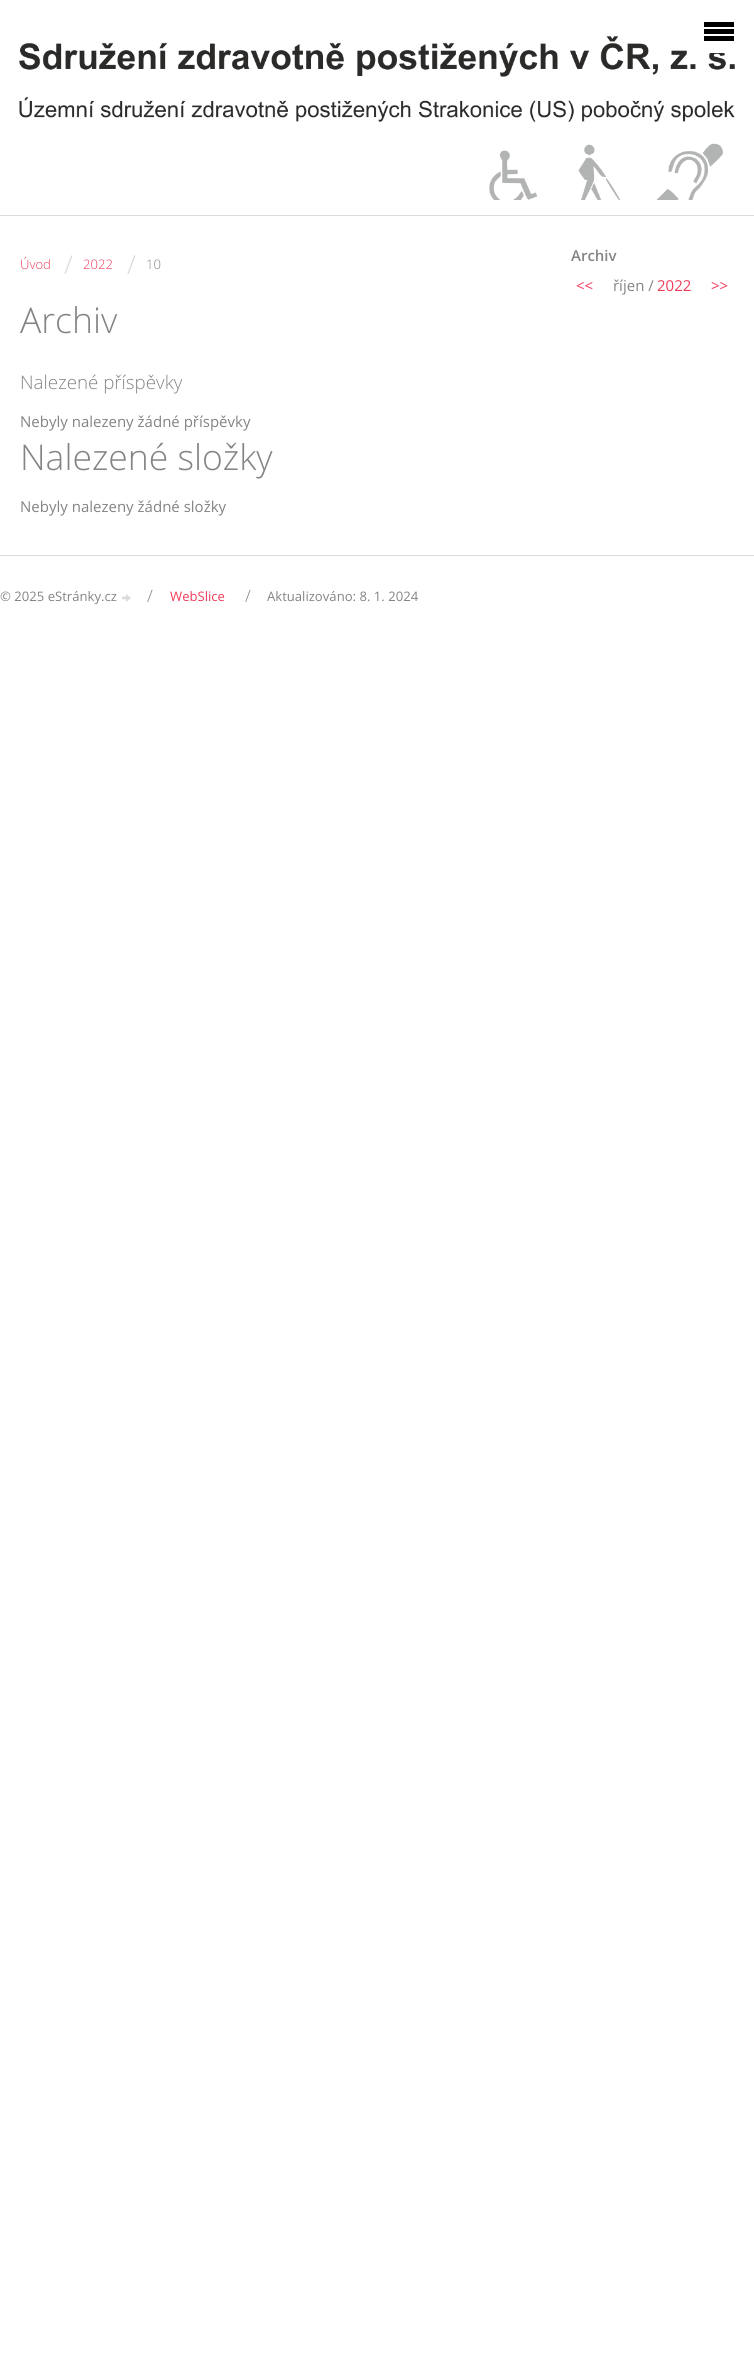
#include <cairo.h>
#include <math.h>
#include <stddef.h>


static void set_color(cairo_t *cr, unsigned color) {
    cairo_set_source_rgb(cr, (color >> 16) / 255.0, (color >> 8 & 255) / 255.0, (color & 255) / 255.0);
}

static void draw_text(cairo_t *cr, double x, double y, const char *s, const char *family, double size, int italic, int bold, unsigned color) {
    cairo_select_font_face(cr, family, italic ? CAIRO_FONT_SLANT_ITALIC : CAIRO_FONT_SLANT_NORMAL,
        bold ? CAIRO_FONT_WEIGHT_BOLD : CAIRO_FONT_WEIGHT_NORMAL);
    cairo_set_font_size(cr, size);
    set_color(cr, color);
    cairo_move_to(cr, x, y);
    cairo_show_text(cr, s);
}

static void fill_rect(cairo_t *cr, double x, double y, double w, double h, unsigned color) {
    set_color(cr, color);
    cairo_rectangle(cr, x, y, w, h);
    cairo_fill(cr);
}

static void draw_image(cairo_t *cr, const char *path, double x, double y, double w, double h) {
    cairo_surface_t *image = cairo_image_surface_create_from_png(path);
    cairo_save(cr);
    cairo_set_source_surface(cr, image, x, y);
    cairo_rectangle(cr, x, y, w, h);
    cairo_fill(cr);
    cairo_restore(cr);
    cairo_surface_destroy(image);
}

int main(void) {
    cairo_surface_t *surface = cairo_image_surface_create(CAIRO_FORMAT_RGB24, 754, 2359);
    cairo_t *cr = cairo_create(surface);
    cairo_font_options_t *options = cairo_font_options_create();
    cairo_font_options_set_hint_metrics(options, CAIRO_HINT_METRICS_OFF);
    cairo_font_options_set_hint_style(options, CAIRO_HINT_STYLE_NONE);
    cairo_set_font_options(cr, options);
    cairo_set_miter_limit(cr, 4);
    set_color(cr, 0xFFFFFF);
    cairo_paint(cr);
    draw_image(cr, "assets/img1.png", 19, 36, 716, 164);
    fill_rect(cr, 710, 50, 14, 3, 0xFFFFFF);
    fill_rect(cr, 704, 22, 30, 5, 0x000000);
    fill_rect(cr, 704, 29, 30, 5, 0x000000);
    fill_rect(cr, 704, 36, 30, 5, 0x000000);
    fill_rect(cr, 0, 215, 754, 1, 0xDBDBDB);
    draw_text(cr, 20, 269, "Úvod", "Open Sans Light", 13.1, 0, 0, 0xF03A59);
    draw_text(cr, 64, 274, "/", "Open Sans Light", 26, 0, 0, 0xDADADA);
    draw_text(cr, 83, 269, "2022", "Open Sans Light", 13.1, 0, 0, 0xF03A59);
    draw_text(cr, 127, 274, "/", "Open Sans Light", 26, 0, 0, 0xDADADA);
    draw_text(cr, 146, 269, "10", "Open Sans Light", 13.1, 0, 0, 0x848484);
    draw_text(cr, 20, 333, "Archiv", "Open Sans Light", 35.5, 0, 0, 0x848484);
    draw_text(cr, 20, 389, "Nalezené příspěvky", "Open Sans Light", 18.75, 0, 0, 0x848484);
    draw_text(cr, 20, 427, "Nebyly nalezeny žádné příspěvky", "Open Sans", 15, 0, 0, 0x848484);
    draw_text(cr, 20, 470, "Nalezené složky", "Open Sans Light", 35.5, 0, 0, 0x848484);
    draw_text(cr, 20, 512, "Nebyly nalezeny žádné složky", "Open Sans", 15, 0, 0, 0x848484);
    draw_text(cr, 571, 261, "Archiv", "Open Sans SemiBold", 15, 0, 0, 0x848484);
    draw_text(cr, 576, 291, "<<", "Open Sans", 15, 0, 0, 0xF03A59);
    draw_text(cr, 613, 291, "říjen /", "Open Sans", 15, 0, 0, 0x848484);
    draw_text(cr, 657, 291, "2022", "Open Sans", 15, 0, 0, 0xF03A59);
    draw_text(cr, 711, 291, ">>", "Open Sans", 15, 0, 0, 0xF03A59);
    fill_rect(cr, 0, 555, 754, 1, 0xDBDBDB);
    draw_text(cr, 0, 601, "© 2025 eStránky.cz", "Open Sans", 13.1, 0, 0, 0x848484);
    draw_image(cr, "assets/img2.png", 122, 594, 9, 8);
    draw_text(cr, 147, 602, "/", "Open Sans Light", 17, 0, 0, 0x848484);
    draw_text(cr, 170, 601, "WebSlice", "Open Sans", 13.1, 0, 0, 0xF03A59);
    draw_text(cr, 245, 602, "/", "Open Sans Light", 17, 0, 0, 0x848484);
    draw_text(cr, 267, 601, "Aktualizováno: 8. 1. 2024", "Open Sans", 13.1, 0, 0, 0x848484);
    cairo_surface_write_to_png(surface, "output.png");
    cairo_font_options_destroy(options);
    cairo_destroy(cr);
    cairo_surface_destroy(surface);
    return 0;
}
